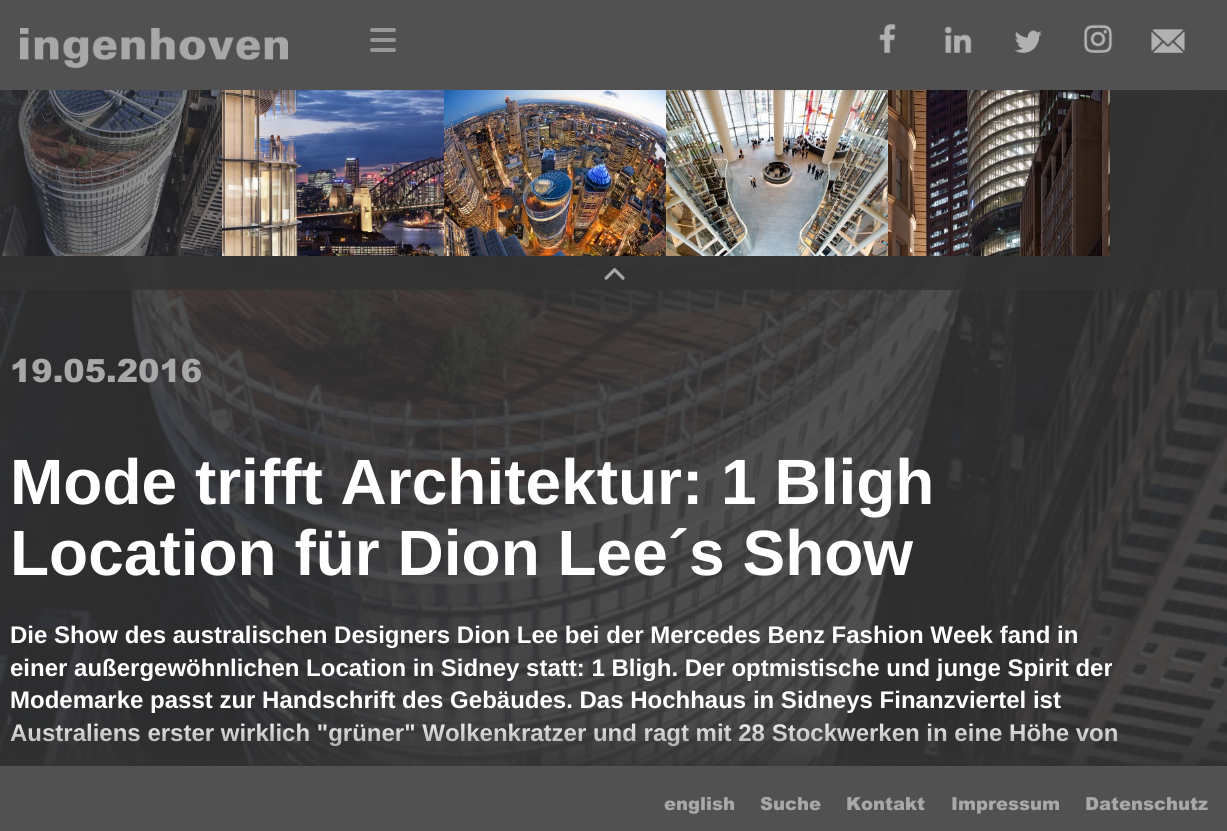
#include <cairo.h>
#include <math.h>
#include <stddef.h>


static void set_color(cairo_t *cr, unsigned color) {
    cairo_set_source_rgb(cr, (color >> 16) / 255.0, (color >> 8 & 255) / 255.0, (color & 255) / 255.0);
}

static void draw_text(cairo_t *cr, double x, double y, const char *s, const char *family, double size, int italic, int bold, unsigned color) {
    cairo_select_font_face(cr, family, italic ? CAIRO_FONT_SLANT_ITALIC : CAIRO_FONT_SLANT_NORMAL,
        bold ? CAIRO_FONT_WEIGHT_BOLD : CAIRO_FONT_WEIGHT_NORMAL);
    cairo_set_font_size(cr, size);
    set_color(cr, color);
    cairo_move_to(cr, x, y);
    cairo_show_text(cr, s);
}

static void rounded_rect(cairo_t *cr, double x, double y, double w, double h, double r) {
    cairo_new_sub_path(cr);
    cairo_arc(cr, x + w - r, y + h - r, r, 0, M_PI / 2);
    cairo_arc(cr, x + r, y + h - r, r, M_PI / 2, M_PI);
    cairo_arc(cr, x + r, y + r, r, M_PI, 1.5 * M_PI);
    cairo_arc(cr, x + w - r, y + r, r, 1.5 * M_PI, 2 * M_PI);
    cairo_close_path(cr);
}

static void draw_image(cairo_t *cr, const char *path, double x, double y, double w, double h) {
    cairo_surface_t *image = cairo_image_surface_create_from_png(path);
    cairo_save(cr);
    cairo_set_source_surface(cr, image, x, y);
    cairo_rectangle(cr, x, y, w, h);
    cairo_fill(cr);
    cairo_restore(cr);
    cairo_surface_destroy(image);
}

int main(void) {
    cairo_surface_t *surface = cairo_image_surface_create(CAIRO_FORMAT_RGB24, 1227, 831);
    cairo_t *cr = cairo_create(surface);
    cairo_font_options_t *options = cairo_font_options_create();
    cairo_font_options_set_hint_metrics(options, CAIRO_HINT_METRICS_OFF);
    cairo_font_options_set_hint_style(options, CAIRO_HINT_STYLE_NONE);
    cairo_set_font_options(cr, options);
    cairo_set_miter_limit(cr, 4);
    cairo_pattern_t *gradient;
    set_color(cr, 0x515151);
    cairo_paint(cr);
    draw_image(cr, "assets/img1.png", 20, 28, 268, 40);
    set_color(cr, 0x979797);
    rounded_rect(cr, 370, 28, 26, 4, 2);
    cairo_fill(cr);
    rounded_rect(cr, 370, 38, 26, 4, 2);
    cairo_fill(cr);
    rounded_rect(cr, 370, 48, 26, 4, 2);
    cairo_fill(cr);
    draw_image(cr, "assets/img2.png", 879, 24, 17, 29);
    draw_image(cr, "assets/img3.png", 944, 26, 28, 27);
    draw_image(cr, "assets/img4.png", 1014, 30, 28, 23);
    draw_image(cr, "assets/img5.png", 1084, 24, 29, 29);
    draw_image(cr, "assets/img6.png", 1151, 29, 34, 24);
    draw_image(cr, "assets/img7.png", 0, 90, 1227, 676);
    cairo_set_source_rgba(cr, 0.2, 0.2, 0.2, 0.85);
    cairo_rectangle(cr, 0, 90, 1227, 200);
    cairo_fill(cr);
    draw_image(cr, "assets/img8.png", 0, 90, 222, 166);
    draw_image(cr, "assets/img9.png", 222, 90, 222, 166);
    draw_image(cr, "assets/img10.png", 444, 90, 222, 166);
    draw_image(cr, "assets/img11.png", 666, 90, 222, 166);
    draw_image(cr, "assets/img12.png", 888, 90, 222, 166);
    draw_image(cr, "assets/img13.png", 604, 268, 21, 12);
    draw_text(cr, 10, 382, "19.05.2016", "Arial Black", 32, 0, 0, 0xA8A8A8);
    draw_text(cr, 10, 504, "Mode trifft Architektur: 1 Bligh", "Liberation Sans", 64, 0, 1, 0xFFFFFF);
    draw_text(cr, 10, 575, "Location für Dion Lee´s Show", "Liberation Sans", 64, 0, 1, 0xFFFFFF);
    draw_text(cr, 10, 643, "Die Show des australischen Designers Dion Lee bei der Mercedes Benz Fashion Week fand in", "Liberation Sans", 24, 0, 1, 0xFFFFFF);
    draw_text(cr, 10, 676, "einer außergewöhnlichen Location in Sidney statt: 1 Bligh. Der optmistische und junge Spirit der", "Liberation Sans", 24, 0, 1, 0xFFFFFF);
    draw_text(cr, 10, 708, "Modemarke passt zur Handschrift des Gebäudes. Das Hochhaus in Sidneys Finanzviertel ist", "Liberation Sans", 24, 0, 1, 0xFFFFFF);
    draw_text(cr, 10, 741, "Australiens erster wirklich \"grüner\" Wolkenkratzer und ragt mit 28 Stockwerken in eine Höhe von", "Liberation Sans", 24, 0, 1, 0xFFFFFF);
    gradient = cairo_pattern_create_linear(614, 716, 614, 766);
    cairo_pattern_add_color_stop_rgba(gradient, 0, 0.2, 0.2, 0.2, 0);
    cairo_pattern_add_color_stop_rgba(gradient, 1, 0.2, 0.2, 0.2, 0.65);
    cairo_set_source(cr, gradient);
    cairo_pattern_destroy(gradient);
    cairo_rectangle(cr, 0, 722, 1227, 44);
    cairo_fill(cr);
    draw_text(cr, 664, 810, "english", "Arial Black", 18, 0, 0, 0xA8A8A8);
    draw_text(cr, 760, 810, "Suche", "Arial Black", 18, 0, 0, 0xA8A8A8);
    draw_text(cr, 846, 810, "Kontakt", "Arial Black", 18, 0, 0, 0xA8A8A8);
    draw_text(cr, 951, 810, "Impressum", "Arial Black", 18, 0, 0, 0xA8A8A8);
    draw_text(cr, 1085, 810, "Datenschutz", "Arial Black", 18, 0, 0, 0xA8A8A8);
    cairo_surface_write_to_png(surface, "output.png");
    cairo_font_options_destroy(options);
    cairo_destroy(cr);
    cairo_surface_destroy(surface);
    return 0;
}
